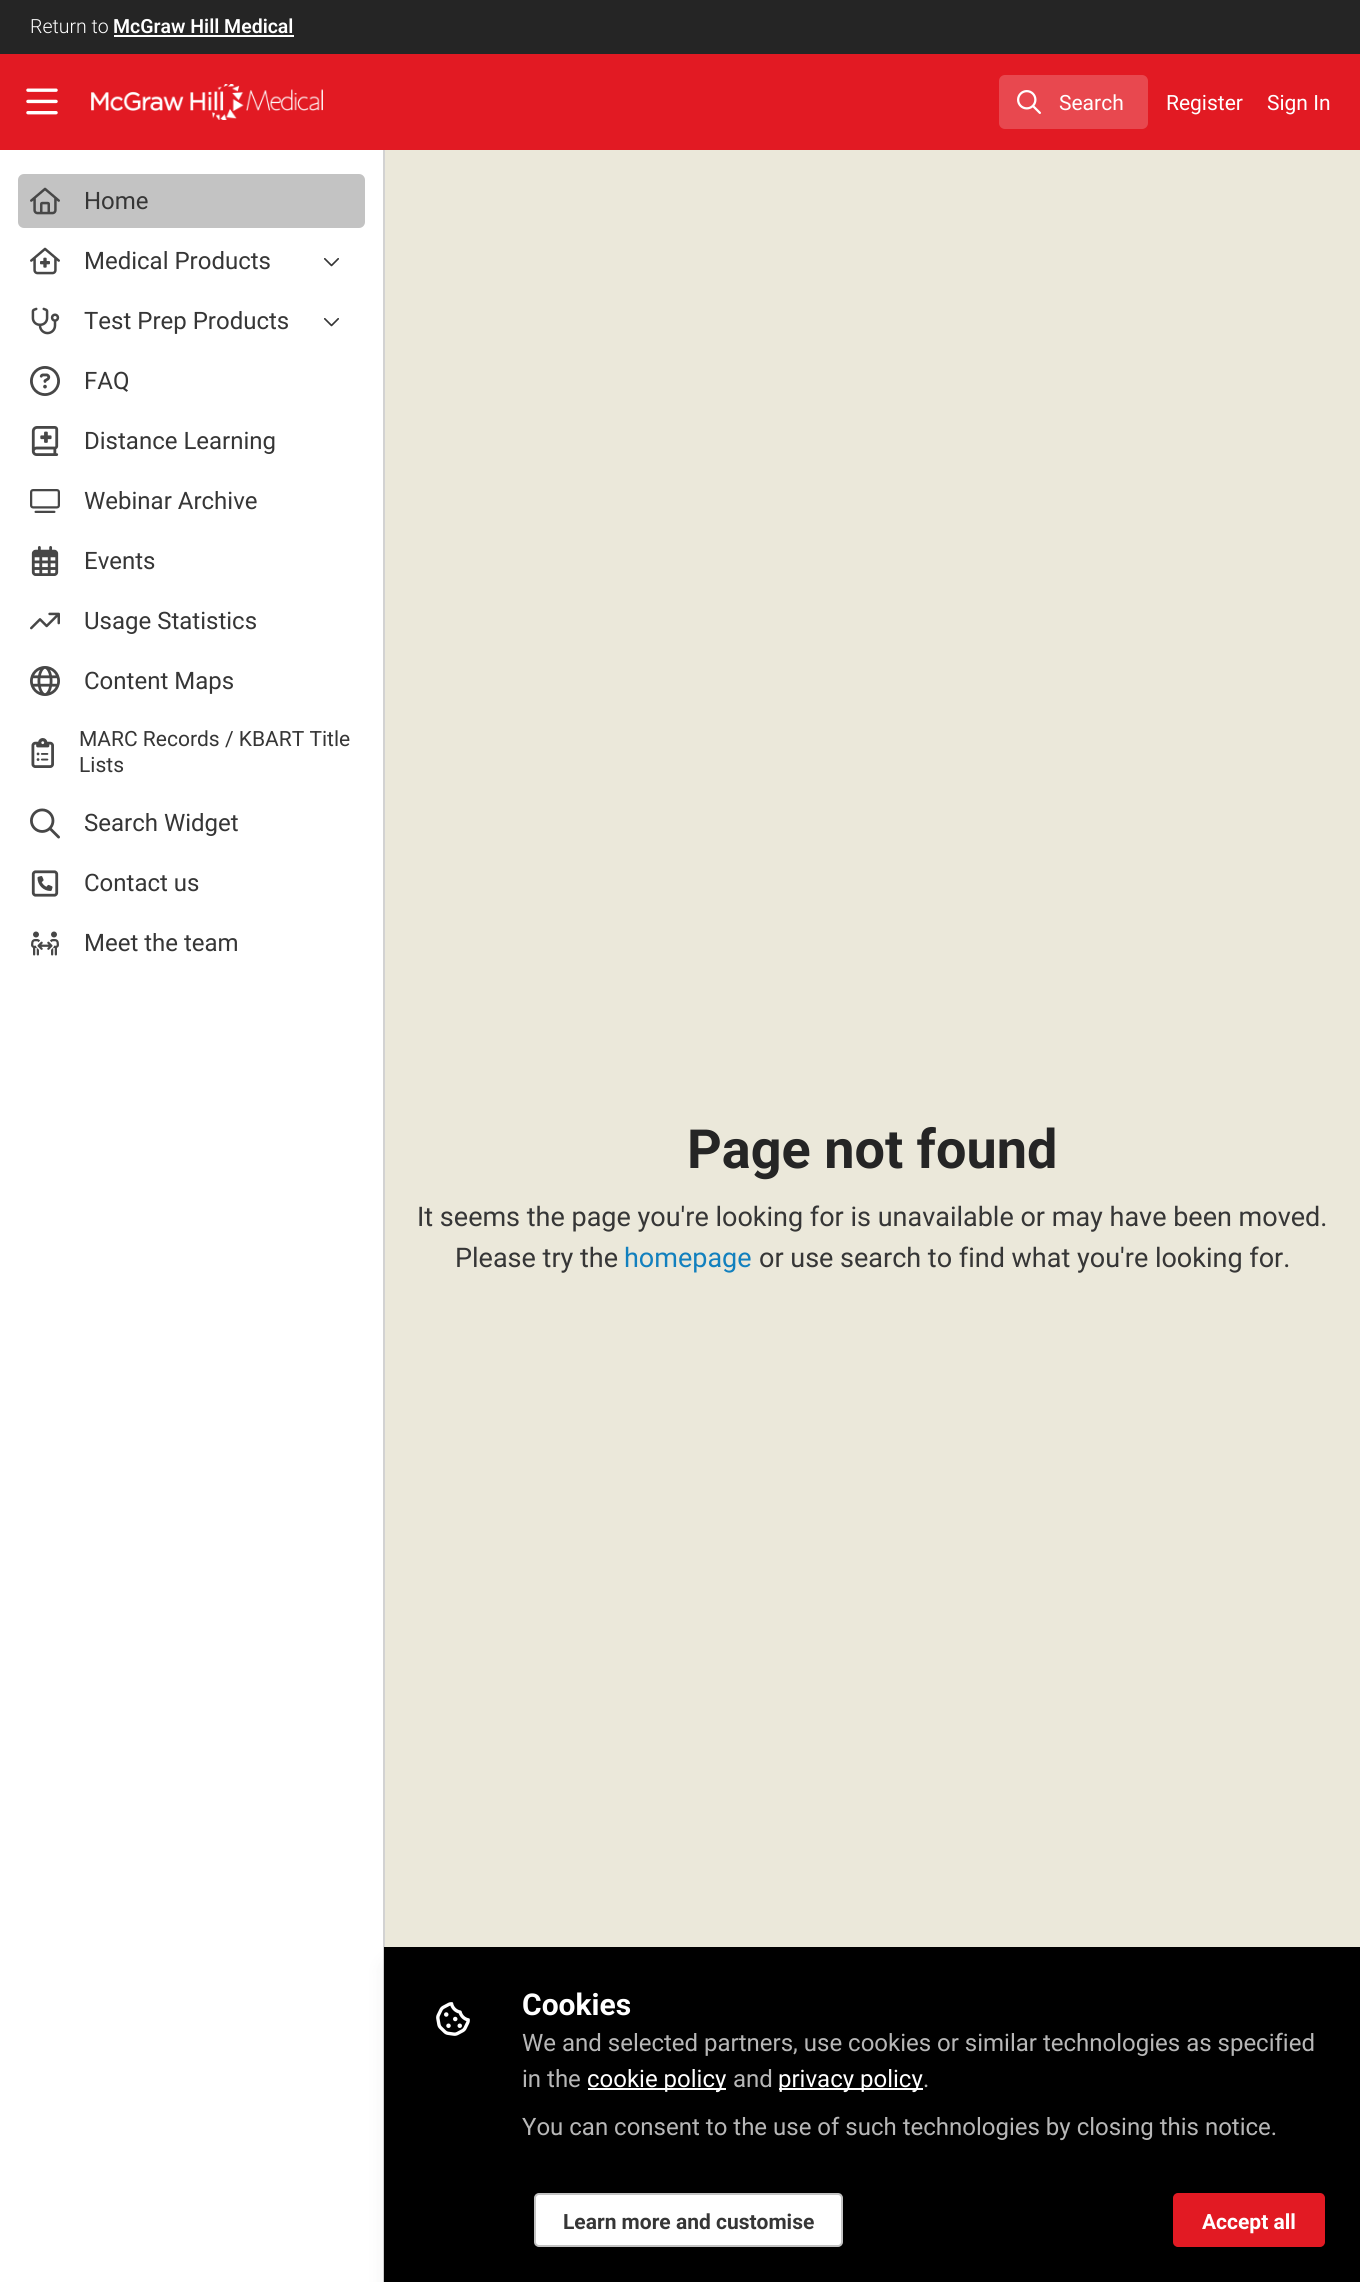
#include <cairo.h>
#include <math.h>
#include <stddef.h>


static void set_color(cairo_t *cr, unsigned color) {
    cairo_set_source_rgb(cr, (color >> 16) / 255.0, (color >> 8 & 255) / 255.0, (color & 255) / 255.0);
}

static void draw_text(cairo_t *cr, double x, double y, const char *s, const char *family, double size, int italic, int bold, unsigned color) {
    cairo_select_font_face(cr, family, italic ? CAIRO_FONT_SLANT_ITALIC : CAIRO_FONT_SLANT_NORMAL,
        bold ? CAIRO_FONT_WEIGHT_BOLD : CAIRO_FONT_WEIGHT_NORMAL);
    cairo_set_font_size(cr, size);
    set_color(cr, color);
    cairo_move_to(cr, x, y);
    cairo_show_text(cr, s);
}

static void fill_rect(cairo_t *cr, double x, double y, double w, double h, unsigned color) {
    set_color(cr, color);
    cairo_rectangle(cr, x, y, w, h);
    cairo_fill(cr);
}

static void rounded_rect(cairo_t *cr, double x, double y, double w, double h, double r) {
    cairo_new_sub_path(cr);
    cairo_arc(cr, x + w - r, y + h - r, r, 0, M_PI / 2);
    cairo_arc(cr, x + r, y + h - r, r, M_PI / 2, M_PI);
    cairo_arc(cr, x + r, y + r, r, M_PI, 1.5 * M_PI);
    cairo_arc(cr, x + w - r, y + r, r, 1.5 * M_PI, 2 * M_PI);
    cairo_close_path(cr);
}

static void draw_shadow(cairo_t *cr, double x, double y, double w, double h, double r, double blur, double alpha) {
    cairo_push_group_with_content(cr, CAIRO_CONTENT_ALPHA);
    cairo_set_operator(cr, CAIRO_OPERATOR_SOURCE);
    for (int i = 15; i >= -15 && fmin(w, h) + blur * i / 3 > 0; i -= 2) {
        double e = blur * i / 6;
        cairo_set_source_rgba(cr, 0, 0, 0, alpha * erfc((i - 1) / 8.5) / 2);
        rounded_rect(cr, x - e, y - e, w + 2 * e, h + 2 * e, fmax(0, fmin(r + e + blur * .6, fmin(w, h) / 2 + e)));
        cairo_fill(cr);
    }
    cairo_pattern_t *soft = cairo_pop_group(cr);
    cairo_mask(cr, soft);
    cairo_pattern_destroy(soft);
}

static void draw_image(cairo_t *cr, const char *path, double x, double y, double w, double h) {
    cairo_surface_t *image = cairo_image_surface_create_from_png(path);
    cairo_save(cr);
    cairo_set_source_surface(cr, image, x, y);
    cairo_rectangle(cr, x, y, w, h);
    cairo_fill(cr);
    cairo_restore(cr);
    cairo_surface_destroy(image);
}

int main(void) {
    cairo_surface_t *surface = cairo_image_surface_create(CAIRO_FORMAT_RGB24, 1360, 2282);
    cairo_t *cr = cairo_create(surface);
    cairo_font_options_t *options = cairo_font_options_create();
    cairo_font_options_set_hint_metrics(options, CAIRO_HINT_METRICS_OFF);
    cairo_font_options_set_hint_style(options, CAIRO_HINT_STYLE_NONE);
    cairo_set_font_options(cr, options);
    cairo_set_miter_limit(cr, 4);
    set_color(cr, 0xEBE8DA);
    cairo_paint(cr);
    fill_rect(cr, 0, 0, 1360, 54, 0x252525);
    draw_text(cr, 30, 33, "Return to", "Roboto Light", 19.5, 0, 0, 0xFFFFFF);
    draw_text(cr, 113, 33, "McGraw Hill Medical", "Roboto SemiBold", 19.5, 0, 0, 0xFFFFFF);
    fill_rect(cr, 114, 35, 180, 2, 0xFFFFFF);
    fill_rect(cr, 0, 54, 1360, 96, 0xE21A23);
    draw_image(cr, "assets/img1.png", 26, 88, 32, 27);
    draw_image(cr, "assets/img2.png", 91, 84, 232, 36);
    set_color(cr, 0xE8484F);
    rounded_rect(cr, 999, 75, 149, 54, 6);
    cairo_fill(cr);
    draw_image(cr, "assets/img3.png", 1017, 90, 24, 24);
    draw_text(cr, 1059, 110, "Search", "Roboto", 21, 0, 0, 0xFFFFFF);
    draw_text(cr, 1166, 110, "Register", "Roboto", 21, 0, 0, 0xFFFFFF);
    draw_text(cr, 1267, 110, "Sign In", "Roboto", 21, 0, 0, 0xFFFFFF);
    fill_rect(cr, 0, 150, 383, 2132, 0xFFFFFF);
    fill_rect(cr, 383, 150, 2, 2132, 0xD2D2D2);
    set_color(cr, 0xC3C3C3);
    rounded_rect(cr, 18, 174, 347, 54, 6);
    cairo_fill(cr);
    draw_image(cr, "assets/img4.png", 30, 187, 30, 28);
    draw_text(cr, 84, 209, "Home", "Roboto", 24, 0, 0, 0x363636);
    draw_image(cr, "assets/img5.png", 30, 247, 30, 28);
    draw_text(cr, 84, 269, "Medical Products", "Roboto", 24, 0, 0, 0x363636);
    draw_image(cr, "assets/img6.png", 324, 258, 15, 9);
    draw_image(cr, "assets/img7.png", 31, 307, 29, 28);
    draw_text(cr, 84, 329, "Test Prep Products", "Roboto", 24, 0, 0, 0x363636);
    draw_image(cr, "assets/img6.png", 324, 318, 15, 9);
    draw_image(cr, "assets/img8.png", 30, 366, 30, 30);
    draw_text(cr, 84, 389, "FAQ", "Roboto", 24, 0, 0, 0x363636);
    draw_image(cr, "assets/img9.png", 31, 426, 28, 30);
    draw_text(cr, 84, 449, "Distance Learning", "Roboto", 24, 0, 0, 0x363636);
    draw_image(cr, "assets/img10.png", 30, 489, 30, 24);
    draw_text(cr, 84, 509, "Webinar Archive", "Roboto", 24, 0, 0, 0x363636);
    draw_image(cr, "assets/img11.png", 31, 546, 28, 30);
    draw_text(cr, 84, 569, "Events", "Roboto", 24, 0, 0, 0x363636);
    draw_image(cr, "assets/img12.png", 30, 612, 30, 18);
    draw_text(cr, 84, 629, "Usage Statistics", "Roboto", 24, 0, 0, 0x363636);
    draw_image(cr, "assets/img13.png", 30, 666, 30, 30);
    draw_text(cr, 84, 689, "Content Maps", "Roboto", 24, 0, 0, 0x363636);
    draw_image(cr, "assets/img14.png", 31, 738, 23, 30);
    draw_text(cr, 79, 746, "MARC Records / KBART Title", "Roboto", 21, 0, 0, 0x363636);
    draw_text(cr, 79, 772, "Lists", "Roboto", 21, 0, 0, 0x363636);
    draw_image(cr, "assets/img15.png", 30, 808, 30, 31);
    draw_text(cr, 84, 831, "Search Widget", "Roboto", 24, 0, 0, 0x363636);
    draw_image(cr, "assets/img16.png", 31, 870, 28, 27);
    draw_text(cr, 84, 891, "Contact us", "Roboto", 24, 0, 0, 0x363636);
    draw_image(cr, "assets/img17.png", 31, 931, 28, 25);
    draw_text(cr, 84, 951, "Meet the team", "Roboto", 24, 0, 0, 0x363636);
    draw_text(cr, 687, 1168, "Page not found", "Roboto", 54, 0, 1, 0x252525);
    draw_text(cr, 417, 1226, "It seems the page you're looking for is unavailable or may have been moved.", "Roboto", 27, 0, 0, 0x363636);
    draw_text(cr, 455, 1267, "Please try the", "Roboto", 27, 0, 0, 0x363636);
    draw_text(cr, 624, 1267, "homepage", "Roboto", 27, 0, 0, 0x1280BE);
    draw_text(cr, 759, 1267, "or use search to find what you're looking for.", "Roboto", 27, 0, 0, 0x363636);
    set_color(cr, 0x000000);
    draw_shadow(cr, 389, 1967, 967, 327, 0, 11, 0.1);
    fill_rect(cr, 384, 1947, 976, 335, 0x000000);
    draw_image(cr, "assets/img18.png", 436, 2002, 34, 34);
    draw_text(cr, 522, 2015, "Cookies", "Roboto", 30, 0, 1, 0xFFFFFF);
    draw_text(cr, 522, 2051, "We and selected partners, use cookies or similar technologies as specified", "Roboto", 24, 0, 0, 0xB7B7B7);
    draw_text(cr, 522, 2087, "in the", "Roboto", 24, 0, 0, 0xB7B7B7);
    fill_rect(cr, 588, 2088, 138, 2, 0xFFFFFF);
    draw_text(cr, 587, 2087, "cookie policy", "Roboto", 24, 0, 0, 0xFFFFFF);
    draw_text(cr, 733, 2087, "and", "Roboto", 24, 0, 0, 0xB7B7B7);
    fill_rect(cr, 779, 2088, 144, 2, 0xFFFFFF);
    draw_text(cr, 778, 2087, "privacy policy", "Roboto", 24, 0, 0, 0xFFFFFF);
    draw_text(cr, 923, 2087, ".", "Roboto", 24, 0, 0, 0xB7B7B7);
    draw_text(cr, 522, 2135, "You can consent to the use of such technologies by closing this notice.", "Roboto", 24, 0, 0, 0xB7B7B7);
    set_color(cr, 0xFFFFFF);
    rounded_rect(cr, 535, 2194, 307, 52, 4);
    cairo_fill_preserve(cr);
    set_color(cr, 0xC3C3C3);
    cairo_stroke(cr);
    draw_text(cr, 563, 2229, "Learn more and customise", "Roboto", 21, 0, 1, 0x363636);
    set_color(cr, 0xE21A23);
    rounded_rect(cr, 1174, 2194, 150, 52, 4);
    cairo_fill_preserve(cr);
    cairo_stroke(cr);
    draw_text(cr, 1202, 2229, "Accept all", "Roboto", 21, 0, 1, 0xFFFFFF);
    cairo_surface_write_to_png(surface, "output.png");
    cairo_font_options_destroy(options);
    cairo_destroy(cr);
    cairo_surface_destroy(surface);
    return 0;
}
